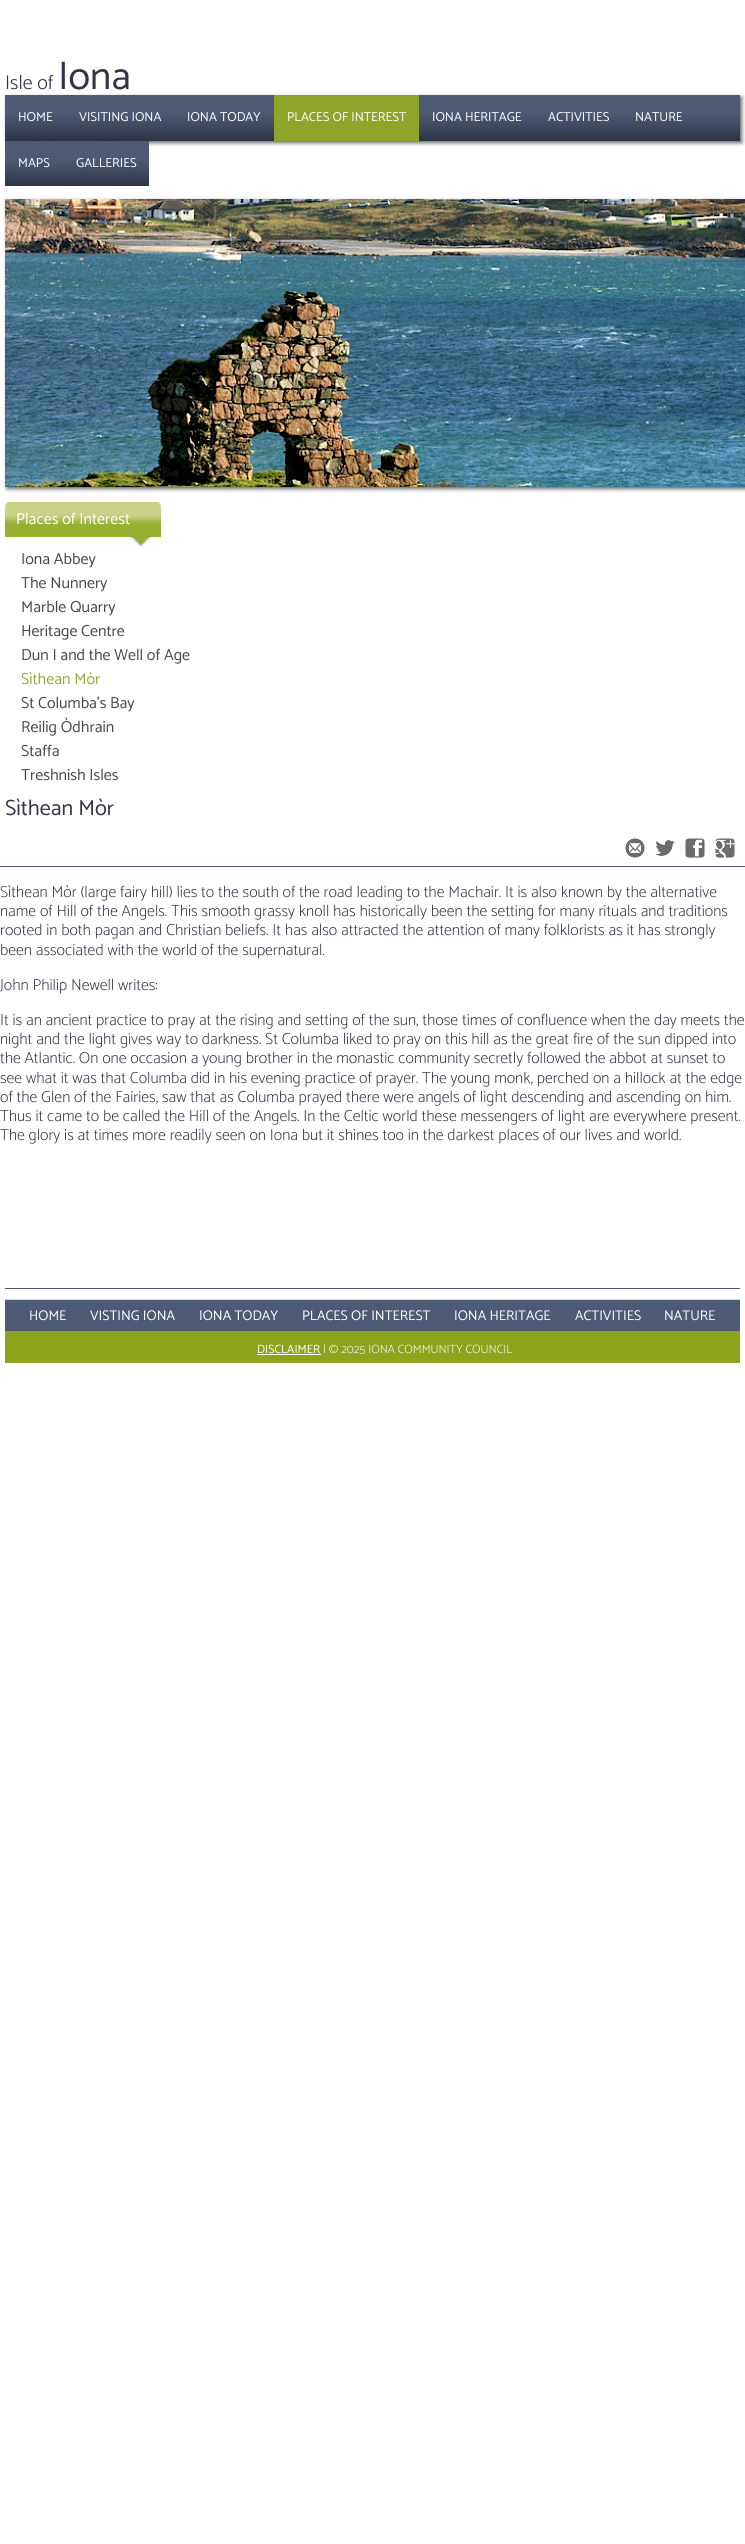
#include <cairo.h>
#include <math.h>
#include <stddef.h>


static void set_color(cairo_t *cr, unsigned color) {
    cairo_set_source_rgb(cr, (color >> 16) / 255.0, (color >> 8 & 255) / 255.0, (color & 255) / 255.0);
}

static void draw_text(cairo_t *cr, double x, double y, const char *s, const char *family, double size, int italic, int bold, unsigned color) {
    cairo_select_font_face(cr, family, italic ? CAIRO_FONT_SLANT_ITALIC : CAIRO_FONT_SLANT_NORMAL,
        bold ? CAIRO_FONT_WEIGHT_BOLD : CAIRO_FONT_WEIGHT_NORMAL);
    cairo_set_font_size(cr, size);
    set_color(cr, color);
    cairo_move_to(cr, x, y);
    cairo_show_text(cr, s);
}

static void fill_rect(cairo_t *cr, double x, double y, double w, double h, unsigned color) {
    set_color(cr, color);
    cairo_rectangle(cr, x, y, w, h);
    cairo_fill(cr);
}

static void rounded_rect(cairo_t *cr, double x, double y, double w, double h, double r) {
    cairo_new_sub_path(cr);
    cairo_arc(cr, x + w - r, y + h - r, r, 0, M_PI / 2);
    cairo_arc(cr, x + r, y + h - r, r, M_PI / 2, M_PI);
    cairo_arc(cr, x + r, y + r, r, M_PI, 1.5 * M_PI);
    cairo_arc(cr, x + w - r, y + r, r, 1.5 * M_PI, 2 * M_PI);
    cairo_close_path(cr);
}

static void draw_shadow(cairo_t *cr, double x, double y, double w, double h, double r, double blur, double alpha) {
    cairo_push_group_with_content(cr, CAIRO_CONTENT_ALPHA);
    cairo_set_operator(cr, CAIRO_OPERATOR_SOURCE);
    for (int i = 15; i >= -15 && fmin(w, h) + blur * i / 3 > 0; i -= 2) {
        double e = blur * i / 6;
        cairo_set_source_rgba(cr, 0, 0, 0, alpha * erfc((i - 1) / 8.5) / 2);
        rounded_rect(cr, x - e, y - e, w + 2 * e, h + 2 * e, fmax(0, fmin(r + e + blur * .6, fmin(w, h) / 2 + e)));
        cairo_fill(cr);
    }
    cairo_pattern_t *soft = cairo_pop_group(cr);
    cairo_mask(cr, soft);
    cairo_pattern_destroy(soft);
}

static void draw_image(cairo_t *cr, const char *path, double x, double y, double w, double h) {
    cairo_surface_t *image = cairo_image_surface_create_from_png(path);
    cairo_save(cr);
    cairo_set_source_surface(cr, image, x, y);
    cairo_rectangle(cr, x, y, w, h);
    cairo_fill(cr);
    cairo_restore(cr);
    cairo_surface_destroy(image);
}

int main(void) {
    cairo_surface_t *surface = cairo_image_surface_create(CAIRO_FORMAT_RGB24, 745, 2544);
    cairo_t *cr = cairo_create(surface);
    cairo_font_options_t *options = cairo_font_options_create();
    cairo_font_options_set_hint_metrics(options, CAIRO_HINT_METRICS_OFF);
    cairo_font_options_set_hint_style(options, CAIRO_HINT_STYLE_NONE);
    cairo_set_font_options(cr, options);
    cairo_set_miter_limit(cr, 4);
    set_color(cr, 0xFFFFFF);
    cairo_paint(cr);
    draw_text(cr, 5, 89, "Isle of", "Catamaran Light", 20, 0, 0, 0x333447);
    draw_text(cr, 58, 89, "Iona", "Catamaran", 40, 0, 0, 0x333447);
    set_color(cr, 0x000000);
    draw_shadow(cr, 7, 97, 735, 46, 0, 2, 0.6);
    fill_rect(cr, 696, 95, 44, 46, 0x4E5A74);
    draw_image(cr, "assets/img1.png", 696, 114, 44, 27);
    fill_rect(cr, 5, 95, 269, 46, 0x4E5A74);
    draw_image(cr, "assets/img2.png", 5, 114, 61, 27);
    draw_text(cr, 18, 121, "HOME", "Catamaran", 13, 0, 0, 0xFFFFFF);
    draw_image(cr, "assets/img3.png", 66, 114, 108, 27);
    draw_text(cr, 79, 121, "VISITING IONA", "Catamaran", 13, 0, 0, 0xFFFFFF);
    draw_image(cr, "assets/img4.png", 174, 114, 100, 27);
    draw_text(cr, 187, 121, "IONA TODAY", "Catamaran", 13, 0, 0, 0xFFFFFF);
    fill_rect(cr, 274, 95, 145, 46, 0x8EA529);
    draw_text(cr, 287, 121, "PLACES OF INTEREST", "Catamaran", 13, 0, 0, 0xFFFFFF);
    fill_rect(cr, 419, 95, 277, 46, 0x4E5A74);
    draw_image(cr, "assets/img5.png", 419, 114, 116, 27);
    draw_text(cr, 432, 121, "IONA HERITAGE", "Catamaran", 13, 0, 0, 0xFFFFFF);
    draw_image(cr, "assets/img6.png", 535, 114, 87, 27);
    draw_text(cr, 548, 121, "ACTIVITIES", "Catamaran", 13, 0, 0, 0xFFFFFF);
    draw_image(cr, "assets/img7.png", 622, 114, 74, 27);
    draw_text(cr, 635, 121, "NATURE", "Catamaran", 13, 0, 0, 0xFFFFFF);
    fill_rect(cr, 5, 141, 144, 45, 0x4E5A74);
    draw_image(cr, "assets/img8.png", 5, 160, 58, 26);
    draw_text(cr, 18, 167, "MAPS", "Catamaran", 13, 0, 0, 0xFFFFFF);
    draw_image(cr, "assets/img9.png", 63, 160, 86, 26);
    draw_text(cr, 76, 167, "GALLERIES", "Catamaran", 13, 0, 0, 0xFFFFFF);
    set_color(cr, 0x000000);
    draw_shadow(cr, 7, 201, 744, 288, 0, 2, 0.6);
    draw_image(cr, "assets/img10.png", 5, 199, 740, 288);
    draw_image(cr, "assets/img11.png", 5, 502, 158, 46);
    draw_text(cr, 16, 524, "Places of Interest", "Catamaran", 16, 0, 0, 0xFFFFFF);
    draw_text(cr, 21, 564, "Iona Abbey", "Catamaran", 16, 0, 0, 0x484848);
    draw_text(cr, 21, 588, "The Nunnery", "Catamaran", 16, 0, 0, 0x484848);
    draw_text(cr, 21, 612, "Marble Quarry", "Catamaran", 16, 0, 0, 0x484848);
    draw_text(cr, 21, 636, "Heritage Centre", "Catamaran", 16, 0, 0, 0x484848);
    draw_text(cr, 21, 660, "Dun I and the Well of Age", "Catamaran", 16, 0, 0, 0x484848);
    draw_text(cr, 21, 684, "Sìthean Mòr", "Catamaran", 16, 0, 0, 0x9BA735);
    draw_text(cr, 21, 708, "St Columba's Bay", "Catamaran", 16, 0, 0, 0x484848);
    draw_text(cr, 21, 732, "Reilig Òdhrain", "Catamaran", 16, 0, 0, 0x484848);
    draw_text(cr, 21, 756, "Staffa", "Catamaran", 16, 0, 0, 0x484848);
    draw_text(cr, 21, 780, "Treshnish Isles", "Catamaran", 16, 0, 0, 0x484848);
    fill_rect(cr, 0, 866, 745, 1, 0x4E5A74);
    draw_text(cr, 5, 815, "Sìthean Mòr", "Catamaran", 22, 0, 0, 0x333447);
    draw_image(cr, "assets/img12.png", 625, 838, 20, 20);
    draw_image(cr, "assets/img13.png", 655, 840, 20, 16);
    draw_image(cr, "assets/img14.png", 685, 838, 20, 20);
    draw_image(cr, "assets/img15.png", 715, 838, 20, 20);
    draw_text(cr, 0, 897, "Sìthean Mòr (large fairy hill) lies to the south of the road leading to the Machair. It is also known by the alternative", "Catamaran ExtraLight", 16, 0, 0, 0x333447);
    draw_text(cr, 0, 916, "name of Hill of the Angels. This smooth grassy knoll has historically been the setting for many rituals and traditions", "Catamaran ExtraLight", 16, 0, 0, 0x333447);
    draw_text(cr, 0, 935, "rooted in both pagan and Christian beliefs. It has also attracted the attention of many folklorists as it has strongly", "Catamaran ExtraLight", 16, 0, 0, 0x333447);
    draw_text(cr, 0, 955, "been associated with the world of the supernatural.", "Catamaran ExtraLight", 16, 0, 0, 0x333447);
    draw_text(cr, 0, 990, "John Philip Newell writes:", "Catamaran ExtraLight", 16, 0, 0, 0x333447);
    draw_text(cr, 0, 1025, "It is an ancient practice to pray at the rising and setting of the sun, those times of confluence when the day meets the", "Catamaran ExtraLight", 16, 0, 0, 0x333447);
    draw_text(cr, 0, 1044, "night and the light gives way to darkness. St Columba liked to pray on this hill as the great fire of the sun dipped into", "Catamaran ExtraLight", 16, 0, 0, 0x333447);
    draw_text(cr, 0, 1063, "the Atlantic. On one occasion a young brother in the monastic community secretly followed the abbot at sunset to", "Catamaran ExtraLight", 16, 0, 0, 0x333447);
    draw_text(cr, 0, 1083, "see what it was that Columba did in his evening practice of prayer. The young monk, perched on a hillock at the edge", "Catamaran ExtraLight", 16, 0, 0, 0x333447);
    draw_text(cr, 0, 1102, "of the Glen of the Fairies, saw that as Columba prayed there were angels of light descending and ascending on him.", "Catamaran ExtraLight", 16, 0, 0, 0x333447);
    draw_text(cr, 0, 1121, "Thus it came to be called the Hill of the Angels. In the Celtic world these messengers of light are everywhere present.", "Catamaran ExtraLight", 16, 0, 0, 0x333447);
    draw_text(cr, 0, 1140, "The glory is at times more readily seen on Iona but it shines too in the darkest places of our lives and world.", "Catamaran ExtraLight", 16, 0, 0, 0x333447);
    fill_rect(cr, 5, 1288, 735, 1, 0x4E5A74);
    fill_rect(cr, 5, 1300, 735, 31, 0x4E5A74);
    fill_rect(cr, 5, 1299, 735, 1, 0xDCDCDC);
    draw_text(cr, 29, 1320, "HOME", "Catamaran", 14, 0, 0, 0xFFFFFF);
    draw_text(cr, 90, 1320, "VISTING IONA", "Catamaran", 14, 0, 0, 0xFFFFFF);
    draw_text(cr, 199, 1320, "IONA TODAY", "Catamaran", 14, 0, 0, 0xFFFFFF);
    draw_text(cr, 302, 1320, "PLACES OF INTEREST", "Catamaran", 14, 0, 0, 0xFFFFFF);
    draw_text(cr, 454, 1320, "IONA HERITAGE", "Catamaran", 14, 0, 0, 0xFFFFFF);
    draw_text(cr, 575, 1320, "ACTIVITIES", "Catamaran", 14, 0, 0, 0xFFFFFF);
    draw_text(cr, 664, 1320, "NATURE", "Catamaran", 14, 0, 0, 0xFFFFFF);
    fill_rect(cr, 5, 1331, 735, 32, 0x8CA31C);
    draw_text(cr, 257, 1353, "DISCLAIMER", "Catamaran", 12, 0, 0, 0xFFFFFF);
    fill_rect(cr, 257, 1354, 64, 1, 0xFFFFFF);
    draw_text(cr, 323, 1353, "| © 2025 IONA COMMUNITY COUNCIL", "Catamaran ExtraLight", 12, 0, 0, 0xFFFFFF);
    cairo_surface_write_to_png(surface, "output.png");
    cairo_font_options_destroy(options);
    cairo_destroy(cr);
    cairo_surface_destroy(surface);
    return 0;
}
